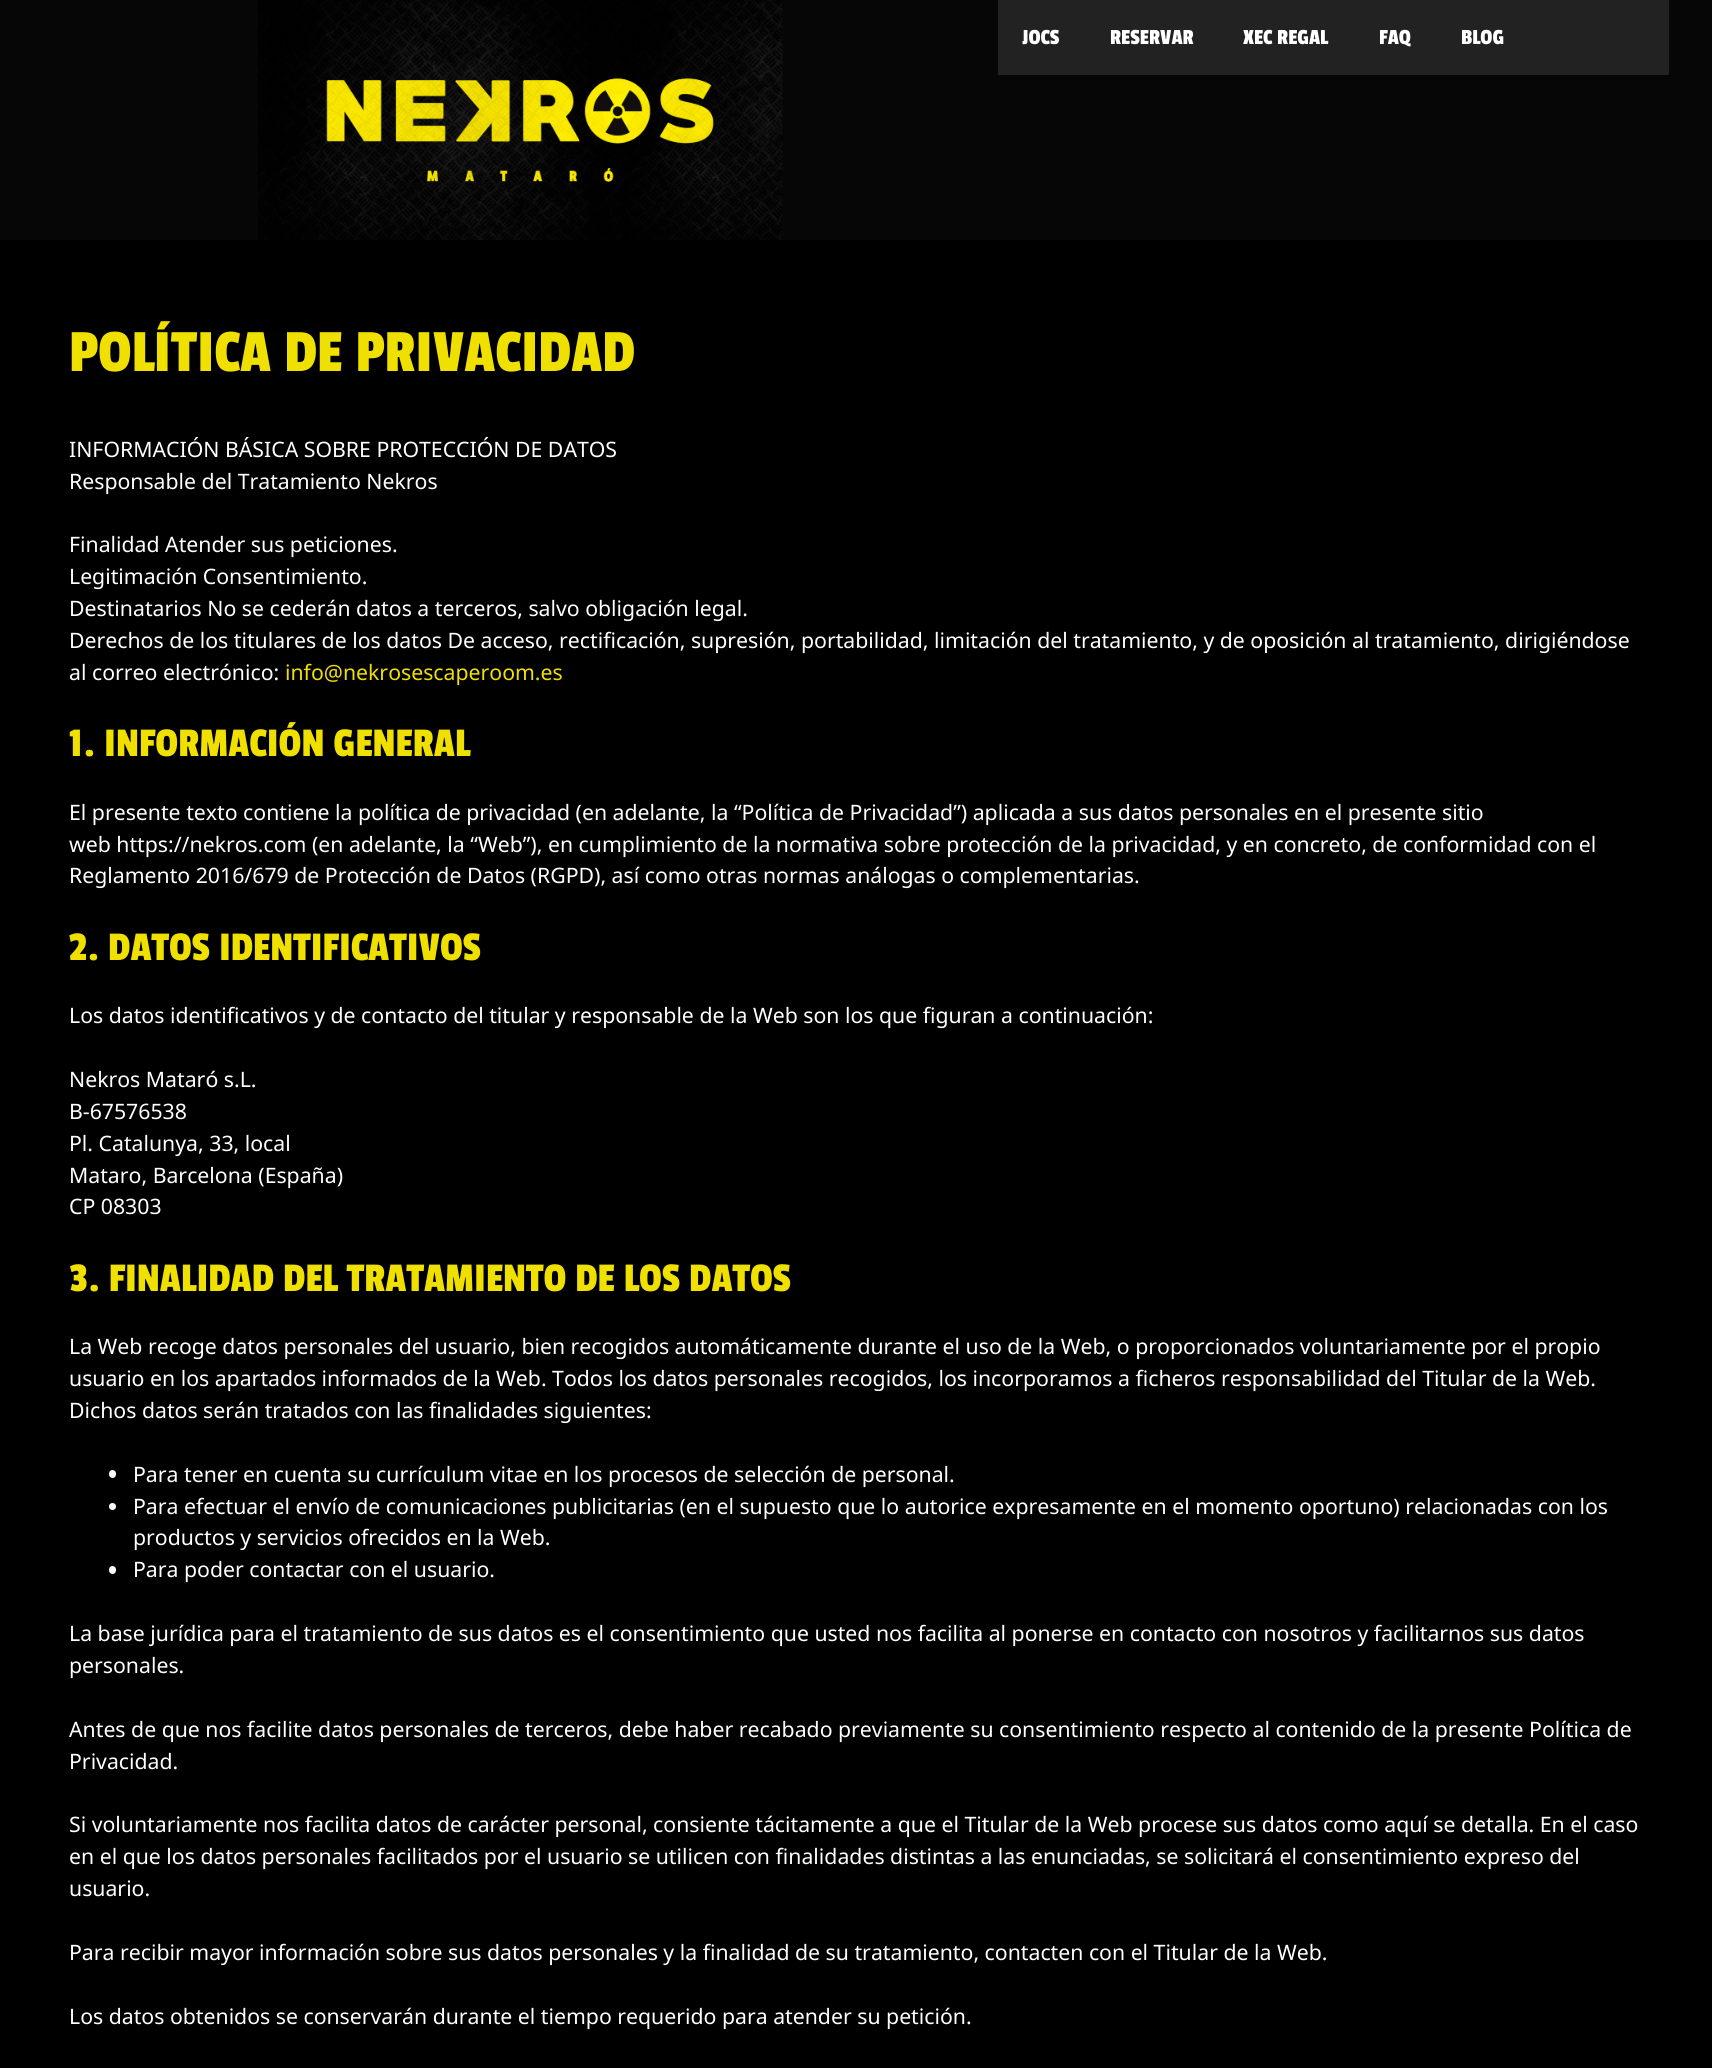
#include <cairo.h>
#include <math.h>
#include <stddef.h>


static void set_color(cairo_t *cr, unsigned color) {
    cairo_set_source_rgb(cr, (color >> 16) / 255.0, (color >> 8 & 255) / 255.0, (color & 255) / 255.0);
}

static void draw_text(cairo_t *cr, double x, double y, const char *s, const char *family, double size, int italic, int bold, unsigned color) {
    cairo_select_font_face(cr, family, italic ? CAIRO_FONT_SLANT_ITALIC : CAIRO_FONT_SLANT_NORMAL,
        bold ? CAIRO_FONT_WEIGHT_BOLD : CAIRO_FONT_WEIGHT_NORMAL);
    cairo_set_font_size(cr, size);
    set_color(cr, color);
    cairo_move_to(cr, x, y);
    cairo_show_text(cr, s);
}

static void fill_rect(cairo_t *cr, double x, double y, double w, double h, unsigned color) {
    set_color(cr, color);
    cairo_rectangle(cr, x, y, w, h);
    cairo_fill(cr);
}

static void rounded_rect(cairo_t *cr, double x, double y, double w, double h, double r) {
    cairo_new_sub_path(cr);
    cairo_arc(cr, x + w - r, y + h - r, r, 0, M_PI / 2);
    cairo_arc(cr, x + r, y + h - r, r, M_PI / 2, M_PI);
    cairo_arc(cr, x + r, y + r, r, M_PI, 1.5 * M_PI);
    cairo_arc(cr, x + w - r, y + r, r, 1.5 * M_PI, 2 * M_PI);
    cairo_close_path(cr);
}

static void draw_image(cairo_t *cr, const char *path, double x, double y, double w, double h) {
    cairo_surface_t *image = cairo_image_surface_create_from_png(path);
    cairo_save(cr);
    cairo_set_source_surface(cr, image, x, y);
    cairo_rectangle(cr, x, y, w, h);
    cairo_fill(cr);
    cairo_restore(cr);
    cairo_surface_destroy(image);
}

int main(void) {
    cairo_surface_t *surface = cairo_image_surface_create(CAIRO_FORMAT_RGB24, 1712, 2068);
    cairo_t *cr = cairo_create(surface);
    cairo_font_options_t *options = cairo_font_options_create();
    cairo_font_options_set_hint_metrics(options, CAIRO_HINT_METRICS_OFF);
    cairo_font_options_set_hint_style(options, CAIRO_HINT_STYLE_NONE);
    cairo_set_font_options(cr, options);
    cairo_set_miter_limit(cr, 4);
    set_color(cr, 0x000000);
    cairo_paint(cr);
    fill_rect(cr, 0, 0, 1712, 240, 0x060606);
    draw_image(cr, "assets/img1.png", 258, 0, 525, 240);
    fill_rect(cr, 998, 0, 671, 75, 0x222222);
    draw_text(cr, 1022, 44, "JOCS", "Passion One", 22.5, 0, 0, 0xFFFFFF);
    draw_text(cr, 1110, 44, "RESERVAR", "Passion One", 22.5, 0, 0, 0xFFFFFF);
    draw_text(cr, 1243, 44, "XEC REGAL", "Passion One", 22.5, 0, 0, 0xFFFFFF);
    draw_text(cr, 1379, 44, "FAQ", "Passion One", 22.5, 0, 0, 0xFFFFFF);
    draw_text(cr, 1461, 44, "BLOG", "Passion One", 22.5, 0, 0, 0xFFFFFF);
    draw_text(cr, 69, 371, "POLÍTICA DE PRIVACIDAD", "Passion One", 62.5, 0, 0, 0xF0E000);
    draw_text(cr, 69, 457, "INFORMACIÓN BÁSICA SOBRE PROTECCIÓN DE DATOS", "Noto Sans", 21.25, 0, 0, 0xFFFFFF);
    draw_text(cr, 69, 489, "Responsable del Tratamiento Nekros", "Noto Sans", 21.25, 0, 0, 0xFFFFFF);
    draw_text(cr, 69, 552, "Finalidad Atender sus peticiones.", "Noto Sans", 21.25, 0, 0, 0xFFFFFF);
    draw_text(cr, 69, 584, "Legitimación Consentimiento.", "Noto Sans", 21.25, 0, 0, 0xFFFFFF);
    draw_text(cr, 69, 616, "Destinatarios No se cederán datos a terceros, salvo obligación legal.", "Noto Sans", 21.25, 0, 0, 0xFFFFFF);
    draw_text(cr, 69, 648, "Derechos de los titulares de los datos De acceso, rectificación, supresión, portabilidad, limitación del tratamiento, y de oposición al tratamiento, dirigiéndose", "Noto Sans", 21.25, 0, 0, 0xFFFFFF);
    draw_text(cr, 69, 680, "al correo electrónico:", "Noto Sans", 21.25, 0, 0, 0xFFFFFF);
    draw_text(cr, 285, 680, "info@nekrosescaperoom.es", "Noto Sans", 21.25, 0, 0, 0xF0E000);
    draw_text(cr, 69, 756, "1. INFORMACIÓN GENERAL", "Passion One", 42.5, 0, 0, 0xF0E000);
    draw_text(cr, 69, 820, "El presente texto contiene la política de privacidad (en adelante, la “Política de Privacidad”) aplicada a sus datos personales en el presente sitio", "Noto Sans", 21.25, 0, 0, 0xFFFFFF);
    draw_text(cr, 69, 852, "web https://nekros.com (en adelante, la “Web”), en cumplimiento de la normativa sobre protección de la privacidad, y en concreto, de conformidad con el", "Noto Sans", 21.25, 0, 0, 0xFFFFFF);
    draw_text(cr, 69, 883, "Reglamento 2016/679 de Protección de Datos (RGPD), así como otras normas análogas o complementarias.", "Noto Sans", 21.25, 0, 0, 0xFFFFFF);
    draw_text(cr, 69, 960, "2. DATOS IDENTIFICATIVOS", "Passion One", 42.5, 0, 0, 0xF0E000);
    draw_text(cr, 69, 1023, "Los datos identificativos y de contacto del titular y responsable de la Web son los que figuran a continuación:", "Noto Sans", 21.25, 0, 0, 0xFFFFFF);
    draw_text(cr, 69, 1087, "Nekros Mataró s.L.", "Noto Sans", 21.25, 0, 0, 0xFFFFFF);
    draw_text(cr, 69, 1119, "B-67576538", "Noto Sans", 21.25, 0, 0, 0xFFFFFF);
    draw_text(cr, 69, 1151, "Pl. Catalunya, 33, local", "Noto Sans", 21.25, 0, 0, 0xFFFFFF);
    draw_text(cr, 69, 1183, "Mataro, Barcelona (España)", "Noto Sans", 21.25, 0, 0, 0xFFFFFF);
    draw_text(cr, 69, 1214, "CP 08303", "Noto Sans", 21.25, 0, 0, 0xFFFFFF);
    draw_text(cr, 69, 1291, "3. FINALIDAD DEL TRATAMIENTO DE LOS DATOS", "Passion One", 42.5, 0, 0, 0xF0E000);
    draw_text(cr, 69, 1354, "La Web recoge datos personales del usuario, bien recogidos automáticamente durante el uso de la Web, o proporcionados voluntariamente por el propio", "Noto Sans", 21.25, 0, 0, 0xFFFFFF);
    draw_text(cr, 69, 1386, "usuario en los apartados informados de la Web. Todos los datos personales recogidos, los incorporamos a ficheros responsabilidad del Titular de la Web.", "Noto Sans", 21.25, 0, 0, 0xFFFFFF);
    draw_text(cr, 69, 1418, "Dichos datos serán tratados con las finalidades siguientes:", "Noto Sans", 21.25, 0, 0, 0xFFFFFF);
    rounded_rect(cr, 109, 1470, 7, 8, 3.5);
    cairo_fill(cr);
    draw_text(cr, 133, 1482, "Para tener en cuenta su currículum vitae en los procesos de selección de personal.", "Noto Sans", 21.25, 0, 0, 0xFFFFFF);
    cairo_new_path(cr);
    cairo_arc(cr, 112.5, 1506.5, 3.5, 0, 2 * M_PI);
    cairo_fill(cr);
    draw_text(cr, 133, 1514, "Para efectuar el envío de comunicaciones publicitarias (en el supuesto que lo autorice expresamente en el momento oportuno) relacionadas con los", "Noto Sans", 21.25, 0, 0, 0xFFFFFF);
    draw_text(cr, 133, 1545, "productos y servicios ofrecidos en la Web.", "Noto Sans", 21.25, 0, 0, 0xFFFFFF);
    rounded_rect(cr, 109, 1566, 7, 8, 3.5);
    cairo_fill(cr);
    draw_text(cr, 133, 1577, "Para poder contactar con el usuario.", "Noto Sans", 21.25, 0, 0, 0xFFFFFF);
    draw_text(cr, 69, 1641, "La base jurídica para el tratamiento de sus datos es el consentimiento que usted nos facilita al ponerse en contacto con nosotros y facilitarnos sus datos", "Noto Sans", 21.25, 0, 0, 0xFFFFFF);
    draw_text(cr, 69, 1673, "personales.", "Noto Sans", 21.25, 0, 0, 0xFFFFFF);
    draw_text(cr, 69, 1737, "Antes de que nos facilite datos personales de terceros, debe haber recabado previamente su consentimiento respecto al contenido de la presente Política de", "Noto Sans", 21.25, 0, 0, 0xFFFFFF);
    draw_text(cr, 69, 1769, "Privacidad.", "Noto Sans", 21.25, 0, 0, 0xFFFFFF);
    draw_text(cr, 69, 1832, "Si voluntariamente nos facilita datos de carácter personal, consiente tácitamente a que el Titular de la Web procese sus datos como aquí se detalla. En el caso", "Noto Sans", 21.25, 0, 0, 0xFFFFFF);
    draw_text(cr, 69, 1864, "en el que los datos personales facilitados por el usuario se utilicen con finalidades distintas a las enunciadas, se solicitará el consentimiento expreso del", "Noto Sans", 21.25, 0, 0, 0xFFFFFF);
    draw_text(cr, 69, 1896, "usuario.", "Noto Sans", 21.25, 0, 0, 0xFFFFFF);
    draw_text(cr, 69, 1960, "Para recibir mayor información sobre sus datos personales y la finalidad de su tratamiento, contacten con el Titular de la Web.", "Noto Sans", 21.25, 0, 0, 0xFFFFFF);
    draw_text(cr, 69, 2024, "Los datos obtenidos se conservarán durante el tiempo requerido para atender su petición.", "Noto Sans", 21.25, 0, 0, 0xFFFFFF);
    cairo_surface_write_to_png(surface, "output.png");
    cairo_font_options_destroy(options);
    cairo_destroy(cr);
    cairo_surface_destroy(surface);
    return 0;
}
